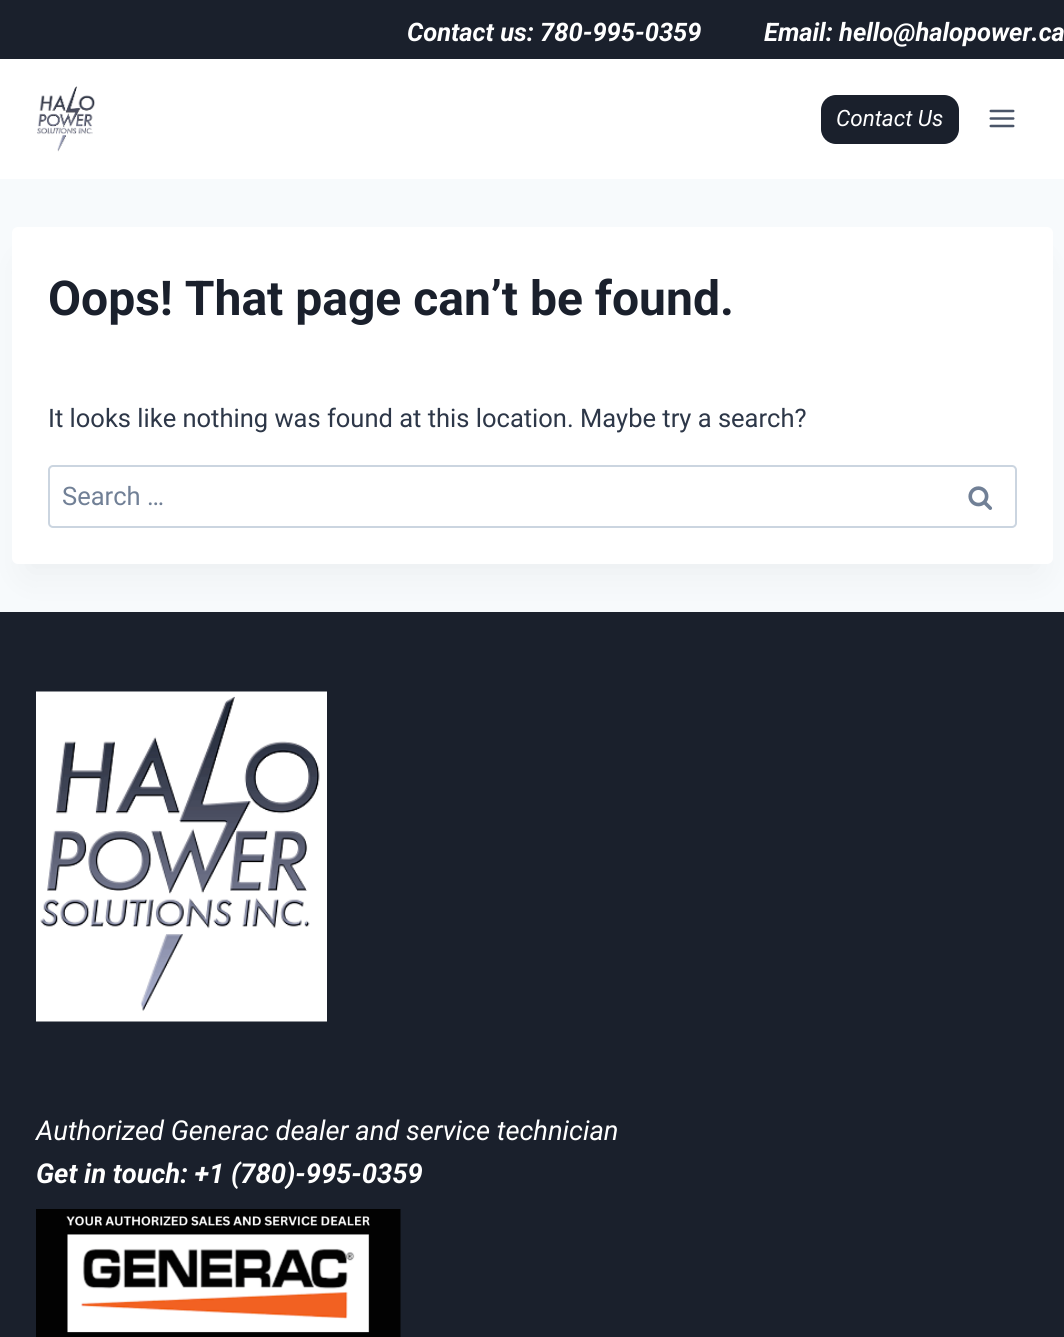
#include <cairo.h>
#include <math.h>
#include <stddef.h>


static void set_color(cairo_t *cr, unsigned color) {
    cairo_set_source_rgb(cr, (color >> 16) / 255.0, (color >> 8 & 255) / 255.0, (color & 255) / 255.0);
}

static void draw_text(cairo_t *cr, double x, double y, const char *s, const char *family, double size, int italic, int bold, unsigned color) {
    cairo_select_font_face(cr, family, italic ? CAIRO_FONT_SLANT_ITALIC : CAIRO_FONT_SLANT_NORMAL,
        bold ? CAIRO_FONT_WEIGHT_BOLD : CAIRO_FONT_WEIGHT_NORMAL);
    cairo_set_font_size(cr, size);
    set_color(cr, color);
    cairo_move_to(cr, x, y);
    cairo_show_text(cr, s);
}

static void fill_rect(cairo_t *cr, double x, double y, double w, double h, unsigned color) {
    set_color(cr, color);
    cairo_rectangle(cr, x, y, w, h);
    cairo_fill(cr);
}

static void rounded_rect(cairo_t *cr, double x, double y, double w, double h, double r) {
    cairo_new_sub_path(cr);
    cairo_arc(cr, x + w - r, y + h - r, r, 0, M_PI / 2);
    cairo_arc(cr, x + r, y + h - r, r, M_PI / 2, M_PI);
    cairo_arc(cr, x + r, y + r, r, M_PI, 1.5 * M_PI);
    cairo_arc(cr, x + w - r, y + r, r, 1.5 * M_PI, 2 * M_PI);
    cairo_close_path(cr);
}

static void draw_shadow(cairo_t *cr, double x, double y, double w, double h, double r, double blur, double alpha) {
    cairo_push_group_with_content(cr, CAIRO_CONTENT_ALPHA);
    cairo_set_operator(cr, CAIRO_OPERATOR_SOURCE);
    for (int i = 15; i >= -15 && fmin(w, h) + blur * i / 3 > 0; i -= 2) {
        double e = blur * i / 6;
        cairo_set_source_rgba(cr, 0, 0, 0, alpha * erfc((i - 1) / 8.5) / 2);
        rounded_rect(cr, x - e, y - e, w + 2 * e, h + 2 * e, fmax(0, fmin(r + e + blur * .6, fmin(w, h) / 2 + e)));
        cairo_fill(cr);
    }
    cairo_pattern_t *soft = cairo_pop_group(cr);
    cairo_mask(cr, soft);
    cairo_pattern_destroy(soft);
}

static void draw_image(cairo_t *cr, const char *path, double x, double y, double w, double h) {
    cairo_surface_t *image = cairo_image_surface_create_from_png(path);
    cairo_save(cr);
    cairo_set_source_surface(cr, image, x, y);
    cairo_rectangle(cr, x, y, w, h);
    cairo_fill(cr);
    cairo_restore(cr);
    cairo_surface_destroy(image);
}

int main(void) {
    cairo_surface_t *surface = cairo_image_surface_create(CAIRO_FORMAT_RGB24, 1064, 1337);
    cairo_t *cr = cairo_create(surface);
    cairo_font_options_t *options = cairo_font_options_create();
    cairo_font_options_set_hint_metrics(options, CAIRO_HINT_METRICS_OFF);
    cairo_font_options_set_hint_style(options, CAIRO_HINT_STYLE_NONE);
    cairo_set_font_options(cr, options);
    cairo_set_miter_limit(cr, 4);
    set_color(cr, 0xF7FAFC);
    cairo_paint(cr);
    fill_rect(cr, 0, 59, 1064, 120, 0xFFFFFF);
    fill_rect(cr, 0, 0, 1064, 59, 0x1A202C);
    draw_text(cr, 407, 41, "Contact us: 780-995-0359", "Roboto", 25.5, 1, 1, 0xFFFFFF);
    draw_text(cr, 764, 41, "Email: hello@halopower.ca", "Roboto", 25.5, 1, 1, 0xFFFFFF);
    draw_image(cr, "assets/img1.png", 37, 86, 58, 66);
    set_color(cr, 0x1A202C);
    rounded_rect(cr, 821, 95, 138, 49, 15);
    cairo_fill(cr);
    draw_text(cr, 836, 126, "Contact Us", "Roboto", 22.5, 1, 0, 0xFFFFFF);
    draw_image(cr, "assets/img2.png", 989, 109, 26, 19);
    fill_rect(cr, 0, 612, 1064, 725, 0x1A202C);
    set_color(cr, 0x000000);
    draw_shadow(cr, 27, 264, 1011, 308, 0, 19, 0.05);
    set_color(cr, 0xFFFFFF);
    rounded_rect(cr, 12, 227, 1041, 337, 6);
    cairo_fill(cr);
    draw_text(cr, 48, 315, "Oops! That page can’t be found.", "Roboto", 48, 0, 1, 0x1A202C);
    draw_text(cr, 48, 427, "It looks like nothing was found at this location. Maybe try a search?", "Roboto", 25.5, 0, 0, 0x2D3748);
    rounded_rect(cr, 49, 466, 967, 61, 4);
    set_color(cr, 0xCBD5E0);
    cairo_stroke(cr);
    draw_text(cr, 62, 505, "Search …", "Roboto", 25.5, 0, 0, 0x718096);
    draw_image(cr, "assets/img3.png", 968, 486, 25, 24);
    draw_image(cr, "assets/img4.png", 36, 691, 291, 331);
    draw_text(cr, 36, 1140, "Authorized Generac dealer and service technician", "Roboto", 27.35, 1, 0, 0xFFFFFF);
    draw_text(cr, 36, 1183, "Get in touch: +1 (780)-995-0359", "Roboto", 27.35, 1, 1, 0xFFFFFF);
    draw_image(cr, "assets/img5.png", 36, 1209, 365, 128);
    cairo_surface_write_to_png(surface, "output.png");
    cairo_font_options_destroy(options);
    cairo_destroy(cr);
    cairo_surface_destroy(surface);
    return 0;
}
